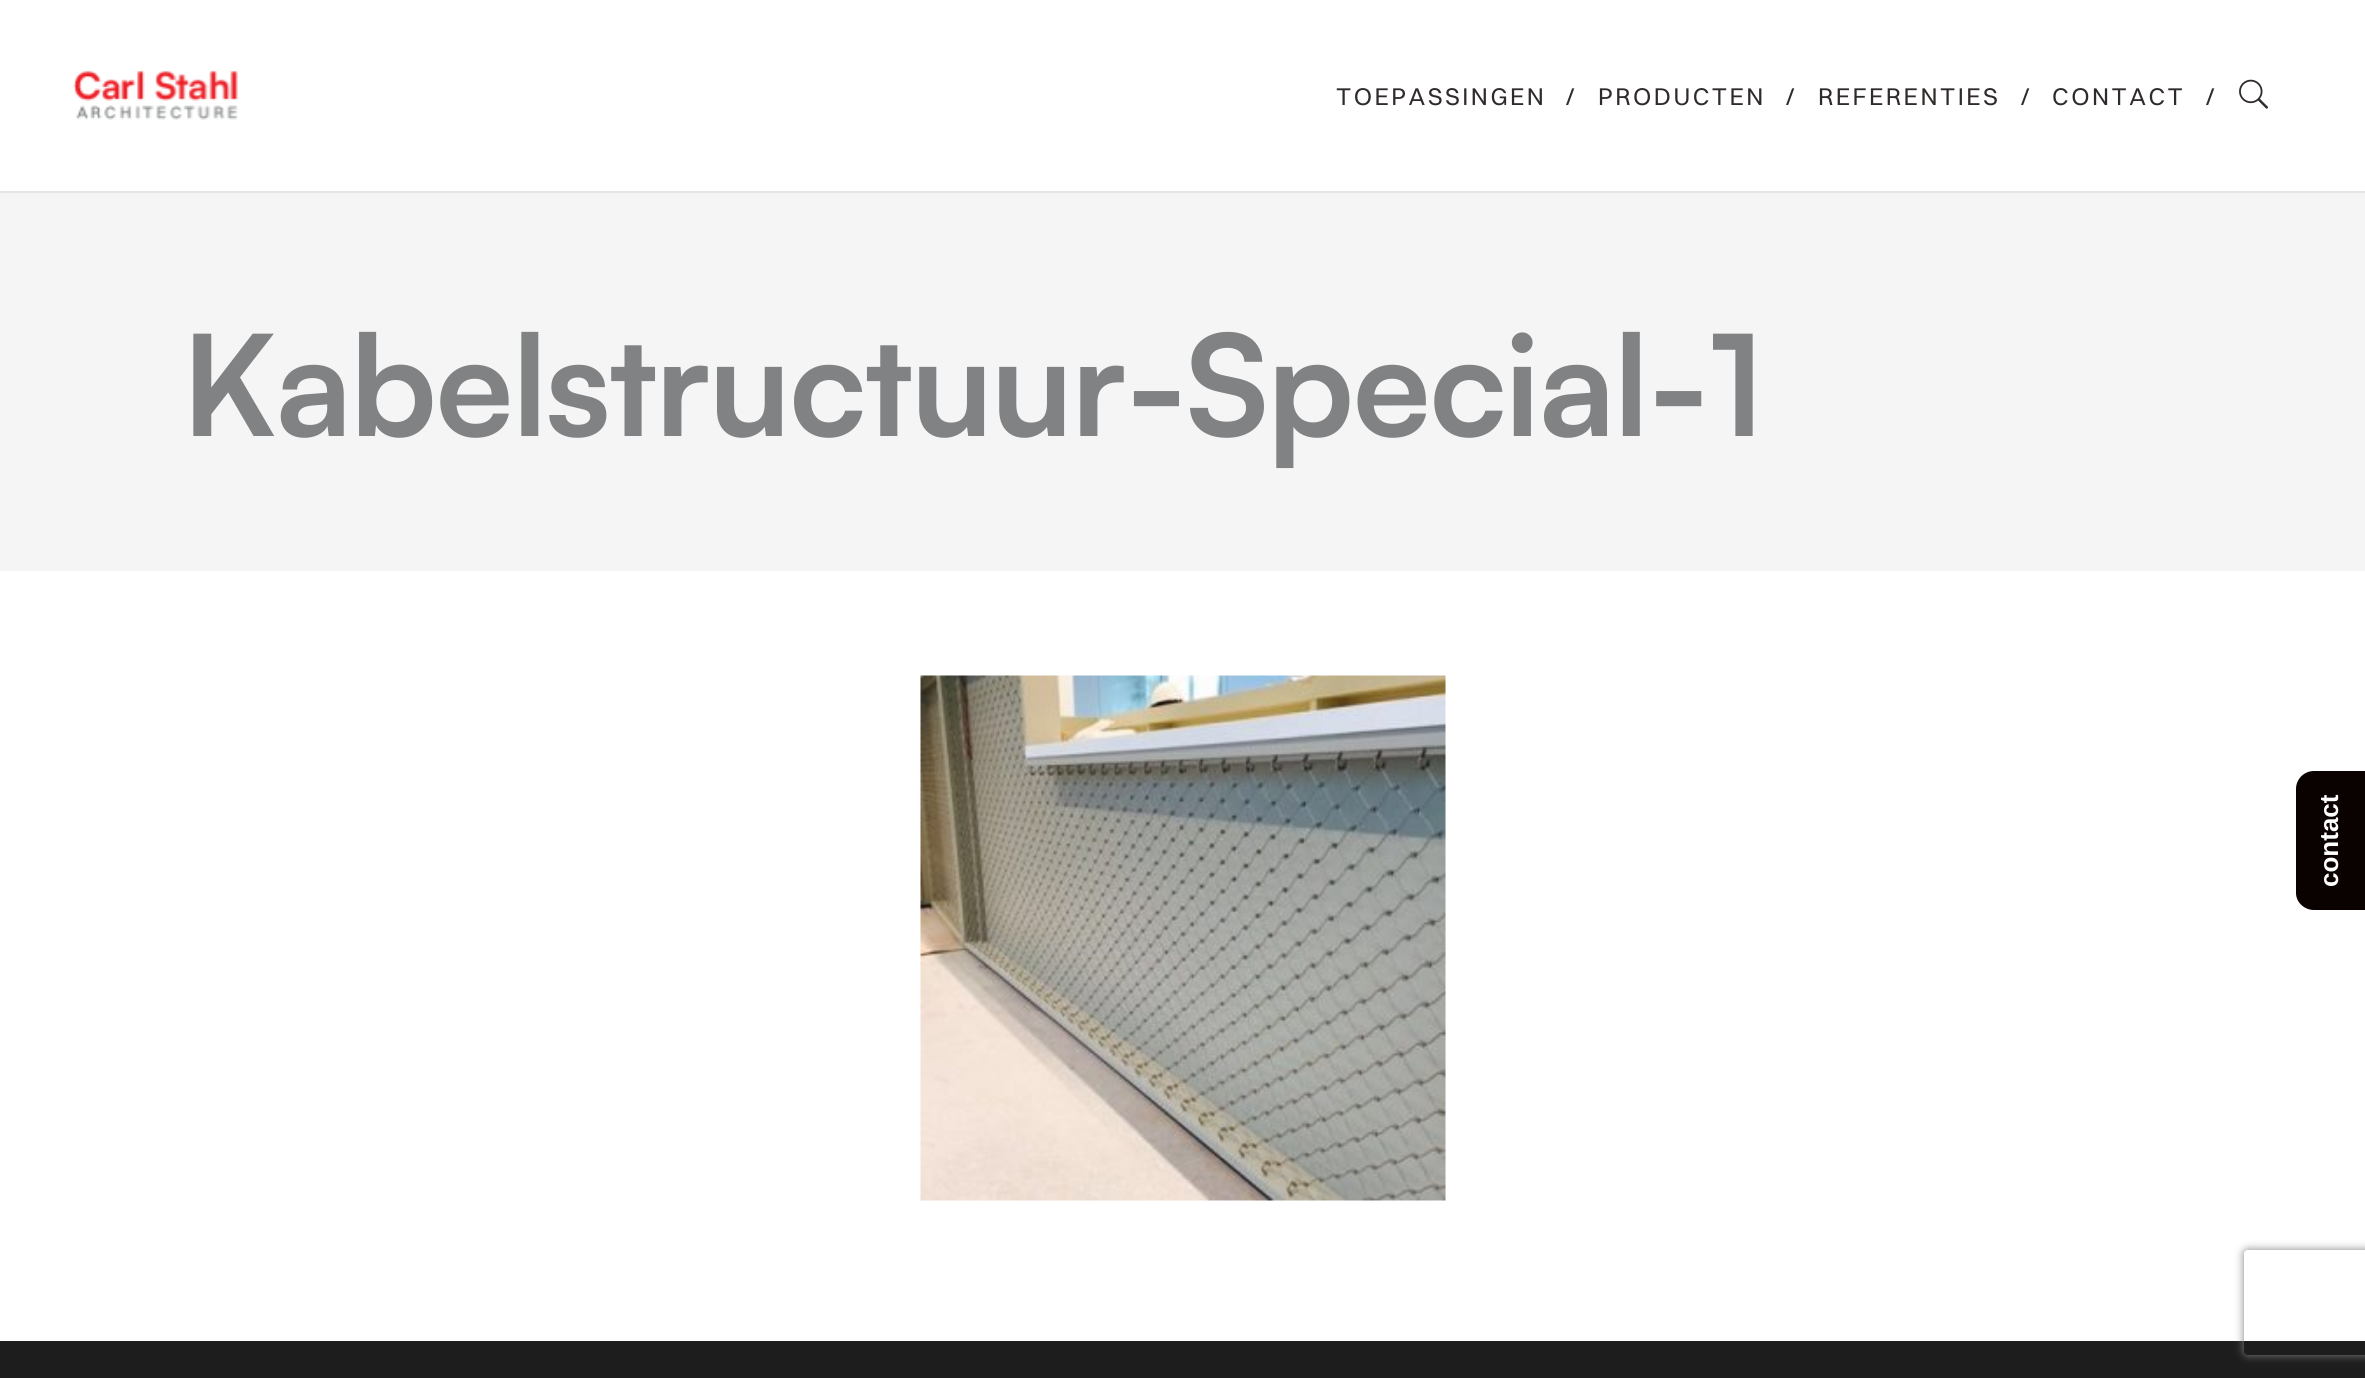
#include <cairo.h>
#include <math.h>
#include <stddef.h>


static void set_color(cairo_t *cr, unsigned color) {
    cairo_set_source_rgb(cr, (color >> 16) / 255.0, (color >> 8 & 255) / 255.0, (color & 255) / 255.0);
}

static void draw_text(cairo_t *cr, double x, double y, const char *s, const char *family, double size, int italic, int bold, unsigned color) {
    cairo_select_font_face(cr, family, italic ? CAIRO_FONT_SLANT_ITALIC : CAIRO_FONT_SLANT_NORMAL,
        bold ? CAIRO_FONT_WEIGHT_BOLD : CAIRO_FONT_WEIGHT_NORMAL);
    cairo_set_font_size(cr, size);
    set_color(cr, color);
    cairo_move_to(cr, x, y);
    cairo_show_text(cr, s);
}

static void draw_spaced(cairo_t *cr, double x, double y, const char *s, double letter, double word) {
    cairo_move_to(cr, x, y);
    while (*s) {
        char ch[5] = {0};
        int n = 0;
        do ch[n++] = *s++; while ((*s & 0xC0) == 0x80);
        cairo_show_text(cr, ch);
        cairo_rel_move_to(cr, letter + word * (*ch == ' '), 0);
    }
}

static void fill_rect(cairo_t *cr, double x, double y, double w, double h, unsigned color) {
    set_color(cr, color);
    cairo_rectangle(cr, x, y, w, h);
    cairo_fill(cr);
}

static void rounded_rect(cairo_t *cr, double x, double y, double w, double h, double r) {
    cairo_new_sub_path(cr);
    cairo_arc(cr, x + w - r, y + h - r, r, 0, M_PI / 2);
    cairo_arc(cr, x + r, y + h - r, r, M_PI / 2, M_PI);
    cairo_arc(cr, x + r, y + r, r, M_PI, 1.5 * M_PI);
    cairo_arc(cr, x + w - r, y + r, r, 1.5 * M_PI, 2 * M_PI);
    cairo_close_path(cr);
}

static void draw_shadow(cairo_t *cr, double x, double y, double w, double h, double r, double blur, double alpha) {
    cairo_push_group_with_content(cr, CAIRO_CONTENT_ALPHA);
    cairo_set_operator(cr, CAIRO_OPERATOR_SOURCE);
    for (int i = 15; i >= -15 && fmin(w, h) + blur * i / 3 > 0; i -= 2) {
        double e = blur * i / 6;
        cairo_set_source_rgba(cr, 0, 0, 0, alpha * erfc((i - 1) / 8.5) / 2);
        rounded_rect(cr, x - e, y - e, w + 2 * e, h + 2 * e, fmax(0, fmin(r + e + blur * .6, fmin(w, h) / 2 + e)));
        cairo_fill(cr);
    }
    cairo_pattern_t *soft = cairo_pop_group(cr);
    cairo_mask(cr, soft);
    cairo_pattern_destroy(soft);
}

static void draw_image(cairo_t *cr, const char *path, double x, double y, double w, double h) {
    cairo_surface_t *image = cairo_image_surface_create_from_png(path);
    cairo_save(cr);
    cairo_set_source_surface(cr, image, x, y);
    cairo_rectangle(cr, x, y, w, h);
    cairo_fill(cr);
    cairo_restore(cr);
    cairo_surface_destroy(image);
}

int main(void) {
    cairo_surface_t *surface = cairo_image_surface_create(CAIRO_FORMAT_RGB24, 2365, 1378);
    cairo_t *cr = cairo_create(surface);
    cairo_font_options_t *options = cairo_font_options_create();
    cairo_font_options_set_hint_metrics(options, CAIRO_HINT_METRICS_OFF);
    cairo_font_options_set_hint_style(options, CAIRO_HINT_STYLE_NONE);
    cairo_set_font_options(cr, options);
    cairo_set_miter_limit(cr, 4);
    set_color(cr, 0xFFFFFF);
    cairo_paint(cr);
    fill_rect(cr, 0, 191, 2365, 2, 0xE5E5E5);
    draw_image(cr, "assets/img1.png", 73, 70, 165, 50);
    cairo_select_font_face(cr, "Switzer", CAIRO_FONT_SLANT_NORMAL, CAIRO_FONT_WEIGHT_NORMAL);
    cairo_set_font_size(cr, 24.5);
    set_color(cr, 0x302B2B);
    draw_spaced(cr, 1336, 105, "TOEPASSINGEN", 2.5, 0);
    draw_text(cr, 1566, 105, "/", "Switzer", 24.5, 0, 0, 0x302B2B);
    draw_spaced(cr, 1598, 105, "PRODUCTEN", 2.5, 0);
    draw_text(cr, 1786, 105, "/", "Switzer", 24.5, 0, 0, 0x302B2B);
    draw_spaced(cr, 1818, 105, "REFERENTIES", 2.5, 0);
    draw_text(cr, 2021, 105, "/", "Switzer", 24.5, 0, 0, 0x302B2B);
    draw_spaced(cr, 2052, 105, "CONTACT", 2.5, 0);
    draw_text(cr, 2206, 105, "/", "Switzer", 24.5, 0, 0, 0x302B2B);
    draw_image(cr, "assets/img2.png", 2239, 79, 29, 30);
    fill_rect(cr, 0, 193, 2365, 378, 0xF5F5F5);
    cairo_select_font_face(cr, "Satoshi", CAIRO_FONT_SLANT_NORMAL, CAIRO_FONT_WEIGHT_BOLD);
    cairo_set_font_size(cr, 140);
    set_color(cr, 0x808284);
    draw_spaced(cr, 182, 436, "Kabelstructuur-Special-1", -1.4, 0);
    draw_image(cr, "assets/img3.png", 920, 675, 526, 526);
    fill_rect(cr, 0, 1341, 2365, 37, 0x1D1D1D);
    set_color(cr, 0x0A0101);
    cairo_new_path(cr);
    cairo_move_to(cr, 2296, 893);
    cairo_line_to(cr, 2296, 789);
    cairo_curve_to(cr, 2296, 779, 2304, 771, 2314, 771);
    cairo_line_to(cr, 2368, 771);
    cairo_line_to(cr, 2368, 910);
    cairo_line_to(cr, 2314, 910);
    cairo_curve_to(cr, 2304, 910, 2296, 902, 2296, 893);
    cairo_close_path(cr);
    cairo_fill(cr);
    cairo_save(cr);
    cairo_translate(cr, 2338, 887);
    cairo_rotate(cr, -90 * M_PI / 180);
    draw_text(cr, 0, 0, "contact", "Liberation Sans", 26, 0, 1, 0xFFFFFF);
    cairo_restore(cr);
    cairo_save(cr);
    cairo_set_fill_rule(cr, CAIRO_FILL_RULE_EVEN_ODD);
    cairo_new_path(cr);
    cairo_move_to(cr, 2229, 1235);
    cairo_line_to(cr, 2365, 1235);
    cairo_line_to(cr, 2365, 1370);
    cairo_line_to(cr, 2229, 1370);
    cairo_close_path(cr);
    cairo_move_to(cr, 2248, 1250);
    cairo_line_to(cr, 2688, 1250);
    cairo_curve_to(cr, 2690, 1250, 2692, 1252, 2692, 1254);
    cairo_line_to(cr, 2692, 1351);
    cairo_curve_to(cr, 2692, 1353, 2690, 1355, 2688, 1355);
    cairo_line_to(cr, 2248, 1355);
    cairo_curve_to(cr, 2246, 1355, 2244, 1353, 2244, 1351);
    cairo_line_to(cr, 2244, 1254);
    cairo_curve_to(cr, 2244, 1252, 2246, 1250, 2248, 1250);
    cairo_close_path(cr);
    cairo_clip(cr);
    set_color(cr, 0x808080);
    draw_shadow(cr, 2244, 1250, 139, 105, 4, 4.5, 1);
    cairo_restore(cr);
    cairo_surface_write_to_png(surface, "output.png");
    cairo_font_options_destroy(options);
    cairo_destroy(cr);
    cairo_surface_destroy(surface);
    return 0;
}
